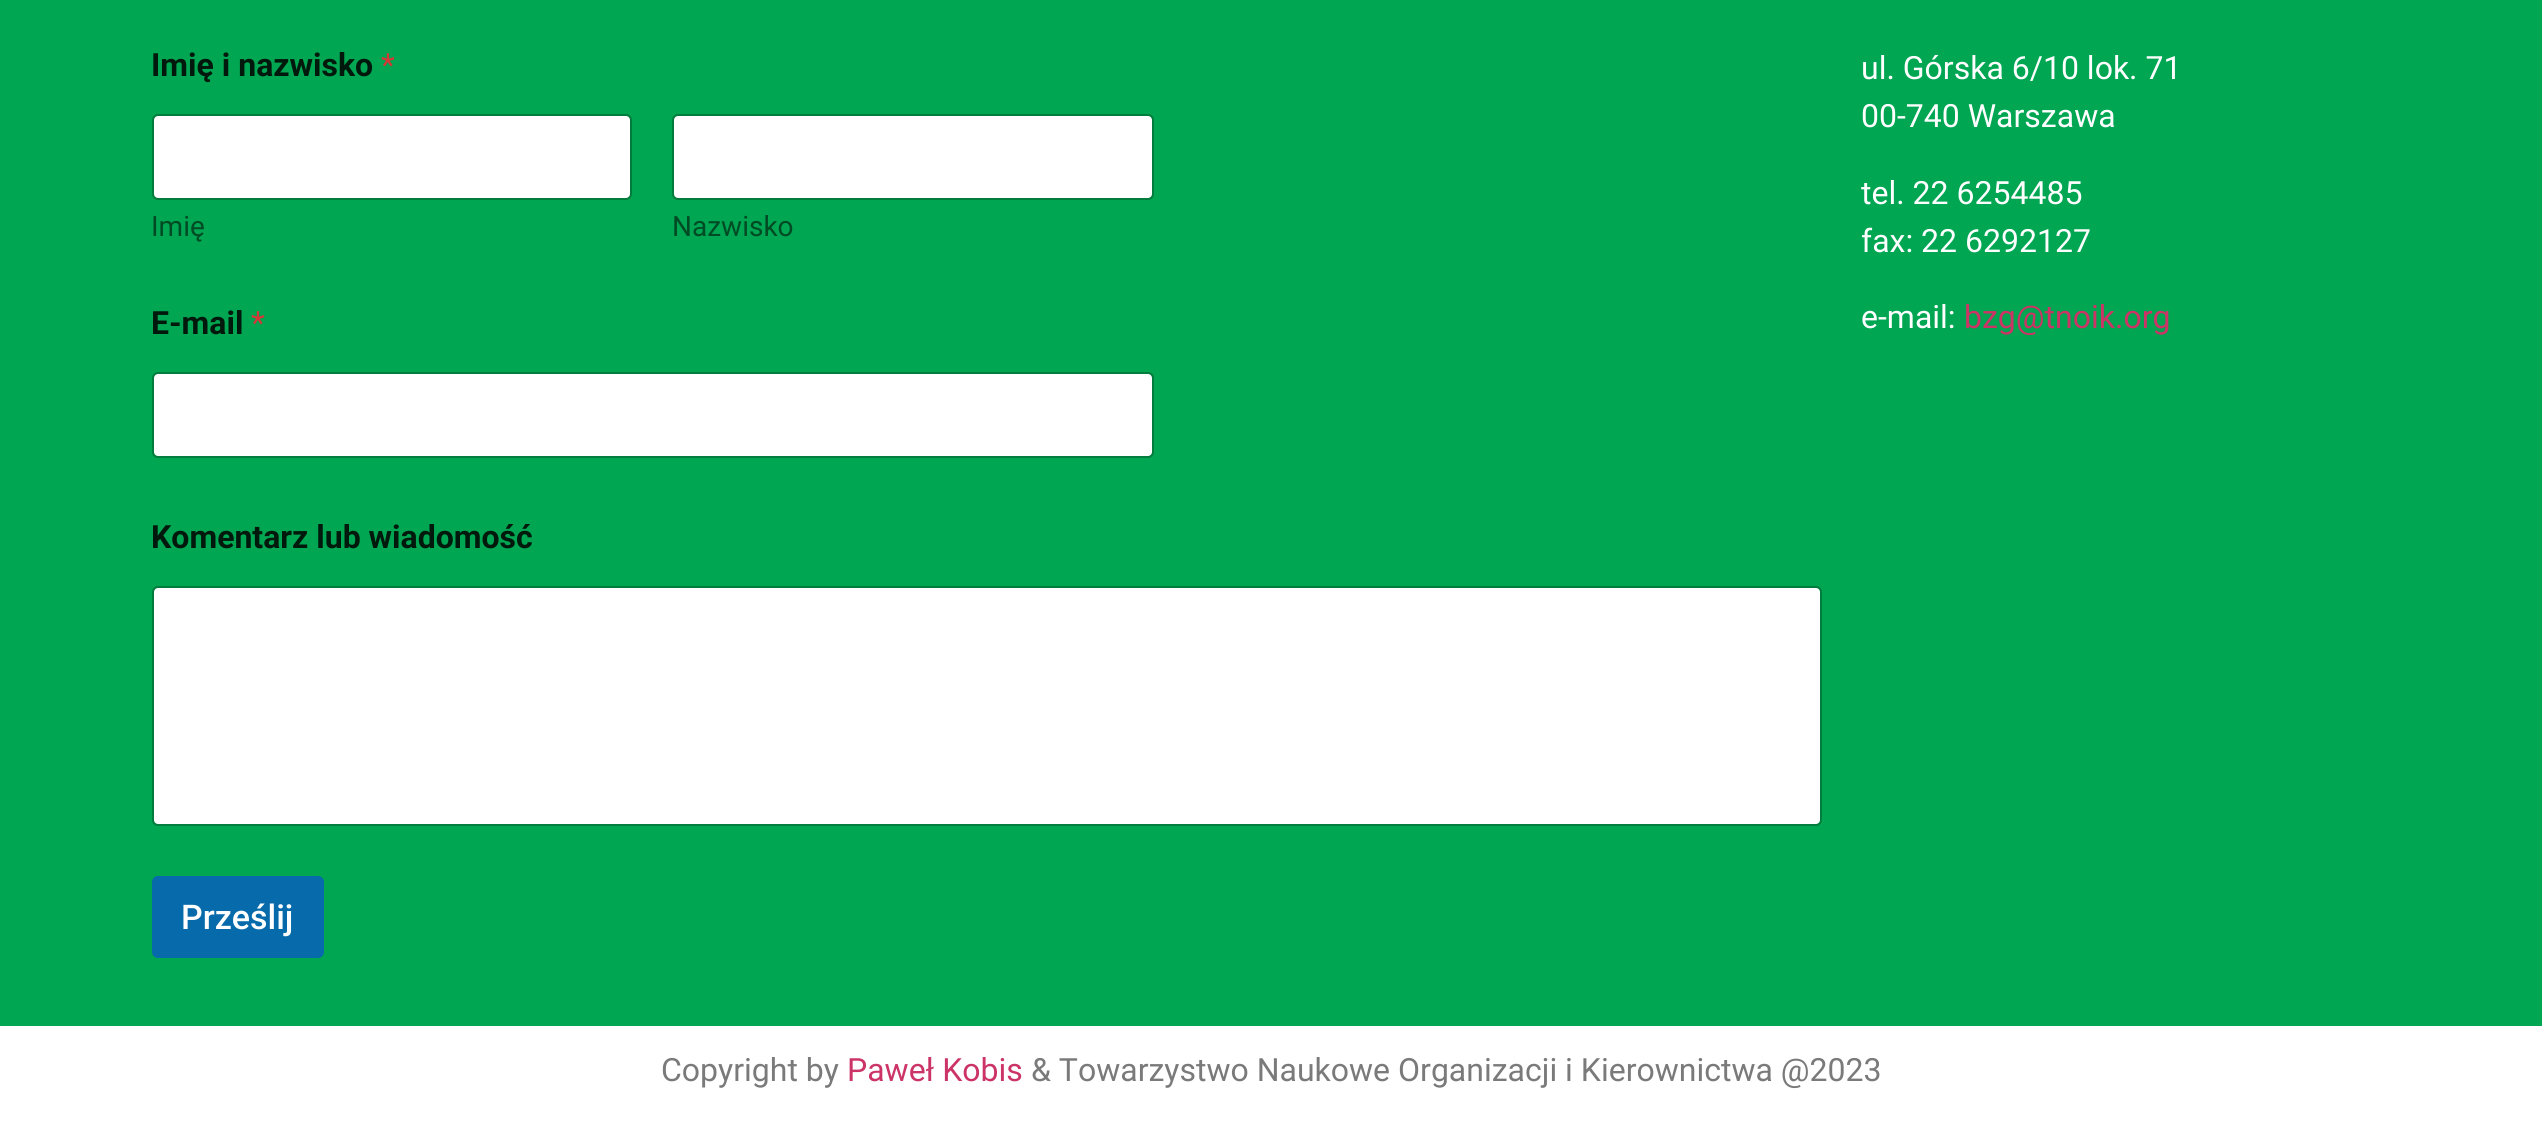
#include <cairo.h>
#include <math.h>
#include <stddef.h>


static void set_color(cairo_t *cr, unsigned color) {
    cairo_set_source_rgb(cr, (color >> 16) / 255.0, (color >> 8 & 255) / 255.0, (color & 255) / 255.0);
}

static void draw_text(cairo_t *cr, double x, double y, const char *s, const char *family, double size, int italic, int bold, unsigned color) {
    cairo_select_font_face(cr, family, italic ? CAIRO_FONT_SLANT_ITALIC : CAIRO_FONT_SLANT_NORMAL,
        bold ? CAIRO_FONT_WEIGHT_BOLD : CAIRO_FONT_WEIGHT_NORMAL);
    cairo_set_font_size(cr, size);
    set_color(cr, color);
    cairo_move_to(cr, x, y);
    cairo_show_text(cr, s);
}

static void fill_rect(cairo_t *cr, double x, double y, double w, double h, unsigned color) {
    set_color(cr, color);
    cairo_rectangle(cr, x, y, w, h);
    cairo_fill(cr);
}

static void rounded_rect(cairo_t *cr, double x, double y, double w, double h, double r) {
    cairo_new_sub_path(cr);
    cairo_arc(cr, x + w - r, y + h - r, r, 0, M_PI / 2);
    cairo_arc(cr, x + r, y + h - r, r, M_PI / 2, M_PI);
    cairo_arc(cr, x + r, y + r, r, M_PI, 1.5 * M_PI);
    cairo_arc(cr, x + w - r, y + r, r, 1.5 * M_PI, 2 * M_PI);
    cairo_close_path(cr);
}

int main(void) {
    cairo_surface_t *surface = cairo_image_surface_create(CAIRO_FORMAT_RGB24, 2542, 1143);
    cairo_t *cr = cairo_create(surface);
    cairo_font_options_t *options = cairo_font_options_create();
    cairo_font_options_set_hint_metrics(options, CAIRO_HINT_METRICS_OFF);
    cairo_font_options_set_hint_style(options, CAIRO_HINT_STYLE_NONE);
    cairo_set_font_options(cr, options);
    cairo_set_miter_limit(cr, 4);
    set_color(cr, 0xFFFFFF);
    cairo_paint(cr);
    fill_rect(cr, 0, 0, 2542, 1026, 0x00A651);
    draw_text(cr, 151, 76, "Imię i nazwisko", "Roboto", 32, 0, 1, 0x00190C);
    draw_text(cr, 381, 76, "*", "Roboto", 32, 0, 0, 0xD63637);
    set_color(cr, 0xFFFFFF);
    rounded_rect(cr, 154, 116, 476, 82, 4);
    cairo_fill(cr);
    rounded_rect(cr, 153, 115, 478, 84, 5);
    cairo_set_source_rgba(cr, 0, 0, 0, 0.25);
    cairo_stroke(cr);
    draw_text(cr, 151, 236, "Imię", "Roboto", 28, 0, 0, 0x004B24);
    set_color(cr, 0xFFFFFF);
    rounded_rect(cr, 674, 116, 478, 82, 4);
    cairo_fill(cr);
    rounded_rect(cr, 673, 115, 480, 84, 5);
    cairo_set_source_rgba(cr, 0, 0, 0, 0.25);
    cairo_stroke(cr);
    draw_text(cr, 672, 236, "Nazwisko", "Roboto", 28, 0, 0, 0x004B24);
    draw_text(cr, 151, 334, "E-mail", "Roboto", 32, 0, 1, 0x00190C);
    draw_text(cr, 251, 334, "*", "Roboto", 32, 0, 0, 0xD63637);
    set_color(cr, 0xFFFFFF);
    rounded_rect(cr, 154, 374, 998, 82, 4);
    cairo_fill(cr);
    rounded_rect(cr, 153, 373, 1000, 84, 5);
    cairo_set_source_rgba(cr, 0, 0, 0, 0.25);
    cairo_stroke(cr);
    draw_text(cr, 151, 548, "Komentarz lub wiadomość", "Roboto", 32, 0, 1, 0x00190C);
    set_color(cr, 0xFFFFFF);
    rounded_rect(cr, 154, 588, 1666, 236, 4);
    cairo_fill(cr);
    rounded_rect(cr, 153, 587, 1668, 238, 5);
    cairo_set_source_rgba(cr, 0, 0, 0, 0.25);
    cairo_stroke(cr);
    set_color(cr, 0x066AAB);
    rounded_rect(cr, 152, 876, 172, 82, 6);
    cairo_fill(cr);
    draw_text(cr, 181, 929, "Prześlij", "Roboto Medium", 34, 0, 0, 0xFFFFFF);
    draw_text(cr, 1861, 79, "ul. Górska 6/10 lok. 71", "Roboto", 32, 0, 0, 0xFFFFFF);
    draw_text(cr, 1861, 127, "00-740 Warszawa", "Roboto", 32, 0, 0, 0xFFFFFF);
    draw_text(cr, 1861, 204, "tel. 22 6254485", "Roboto", 32, 0, 0, 0xFFFFFF);
    draw_text(cr, 1861, 252, "fax: 22 6292127", "Roboto", 32, 0, 0, 0xFFFFFF);
    draw_text(cr, 1861, 328, "e-mail:", "Roboto", 32, 0, 0, 0xFFFFFF);
    draw_text(cr, 1964, 328, "bzg@tnoik.org", "Roboto", 32, 0, 0, 0xCC3366);
    draw_text(cr, 661, 1081, "Copyright by", "Roboto", 32, 0, 0, 0x7A7A7A);
    draw_text(cr, 847, 1081, "Paweł Kobis", "Roboto", 32, 0, 0, 0xCC3366);
    draw_text(cr, 1031, 1081, "& Towarzystwo Naukowe Organizacji i Kierownictwa @2023", "Roboto", 32, 0, 0, 0x7A7A7A);
    cairo_surface_write_to_png(surface, "output.png");
    cairo_font_options_destroy(options);
    cairo_destroy(cr);
    cairo_surface_destroy(surface);
    return 0;
}
